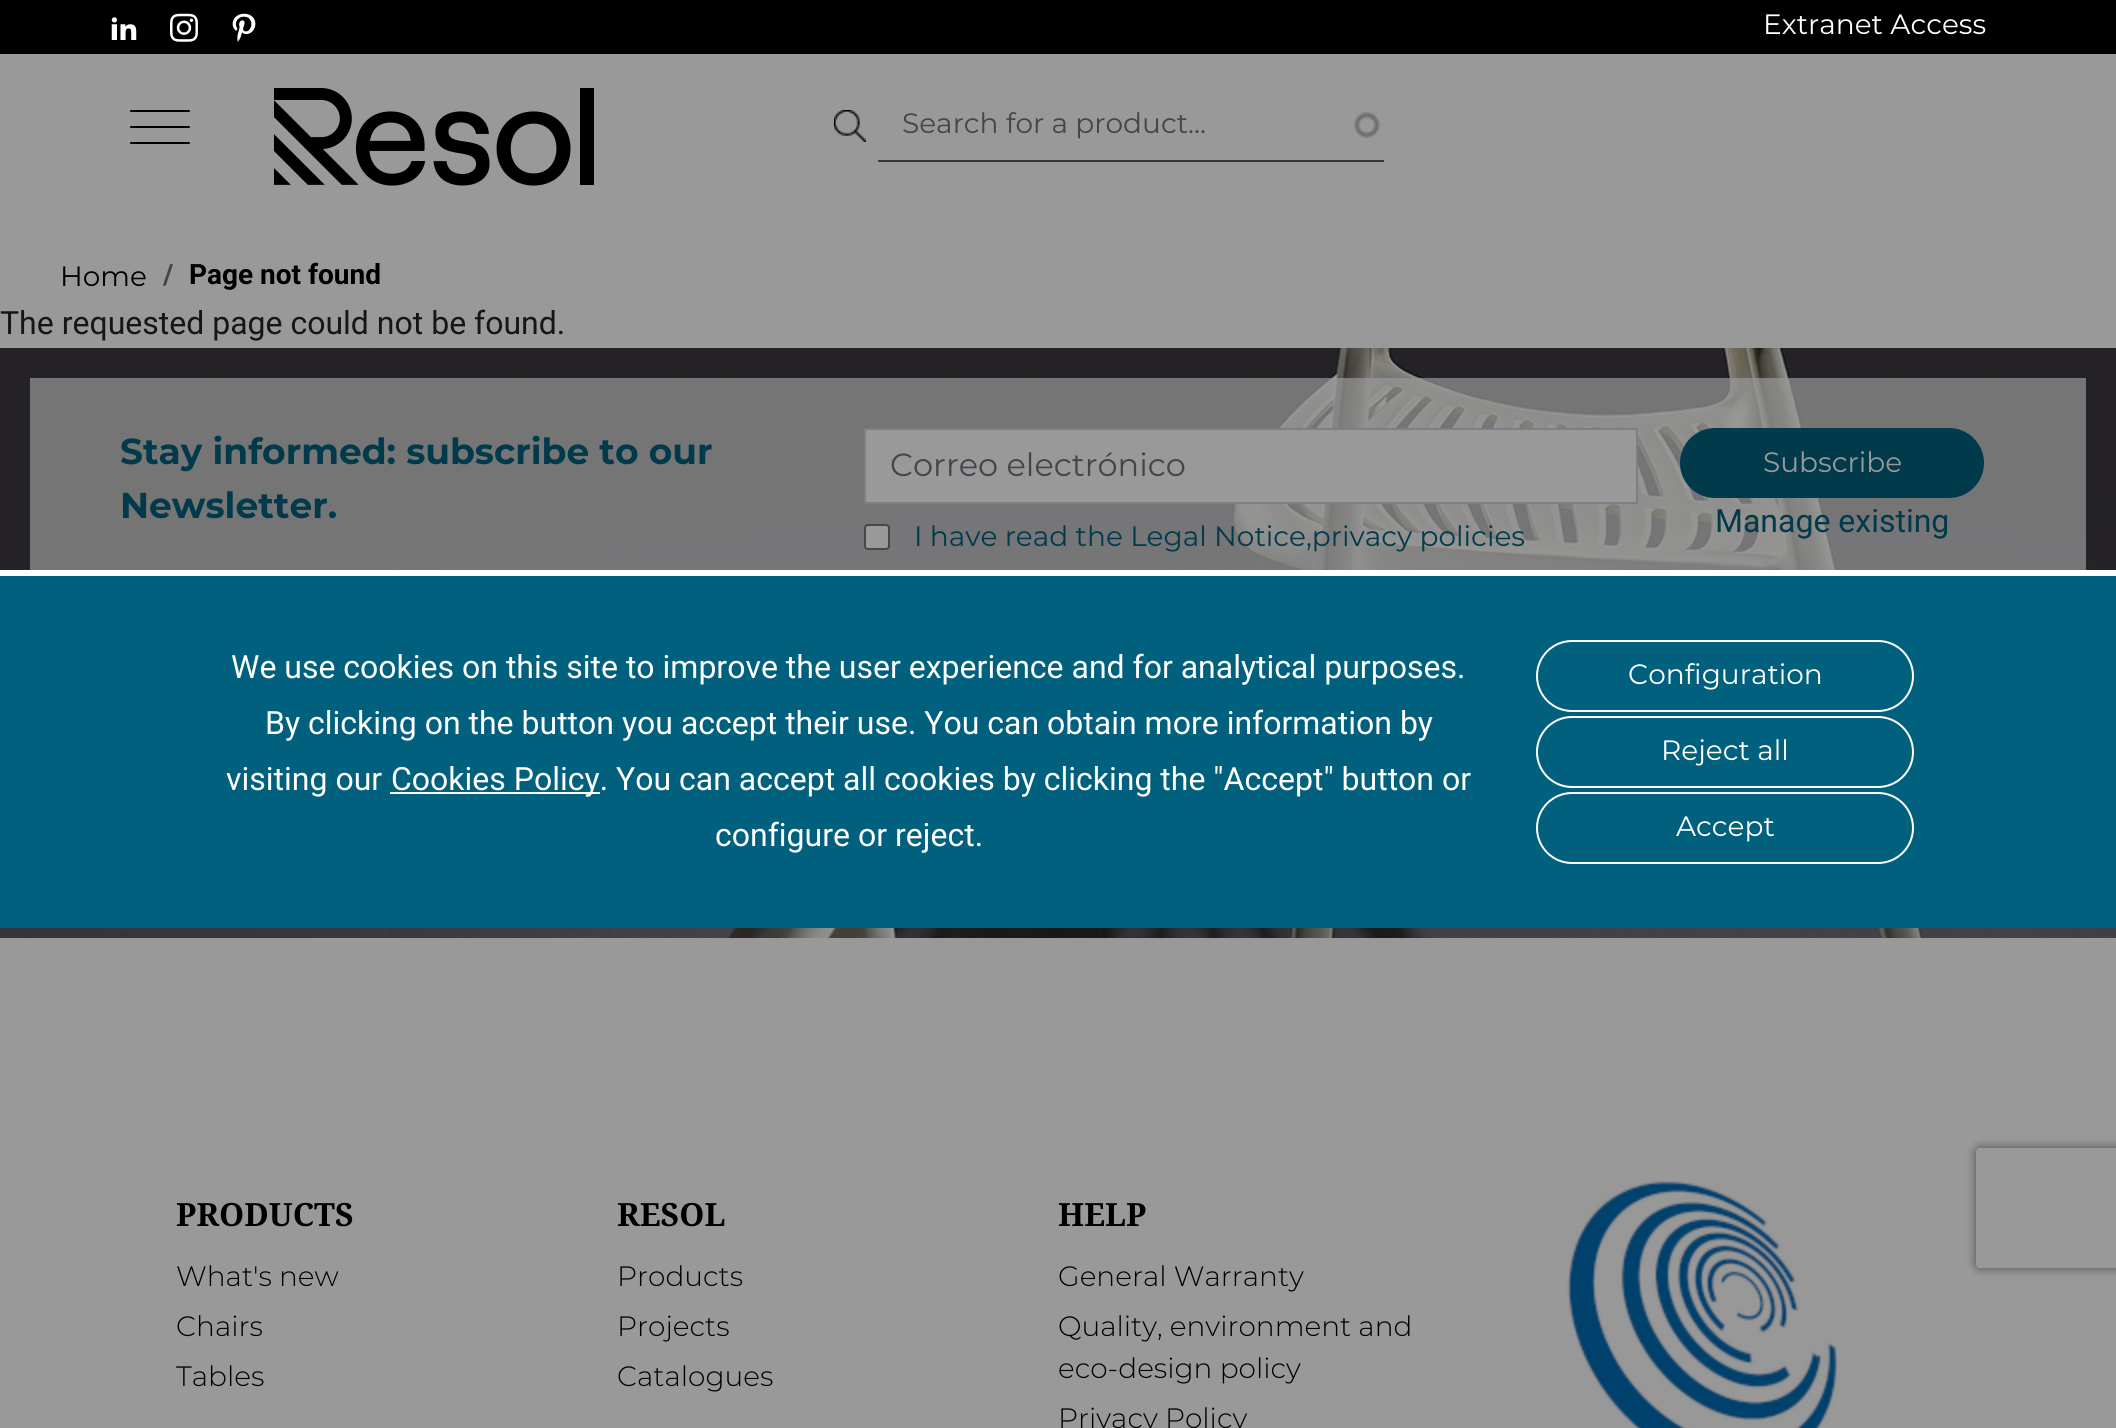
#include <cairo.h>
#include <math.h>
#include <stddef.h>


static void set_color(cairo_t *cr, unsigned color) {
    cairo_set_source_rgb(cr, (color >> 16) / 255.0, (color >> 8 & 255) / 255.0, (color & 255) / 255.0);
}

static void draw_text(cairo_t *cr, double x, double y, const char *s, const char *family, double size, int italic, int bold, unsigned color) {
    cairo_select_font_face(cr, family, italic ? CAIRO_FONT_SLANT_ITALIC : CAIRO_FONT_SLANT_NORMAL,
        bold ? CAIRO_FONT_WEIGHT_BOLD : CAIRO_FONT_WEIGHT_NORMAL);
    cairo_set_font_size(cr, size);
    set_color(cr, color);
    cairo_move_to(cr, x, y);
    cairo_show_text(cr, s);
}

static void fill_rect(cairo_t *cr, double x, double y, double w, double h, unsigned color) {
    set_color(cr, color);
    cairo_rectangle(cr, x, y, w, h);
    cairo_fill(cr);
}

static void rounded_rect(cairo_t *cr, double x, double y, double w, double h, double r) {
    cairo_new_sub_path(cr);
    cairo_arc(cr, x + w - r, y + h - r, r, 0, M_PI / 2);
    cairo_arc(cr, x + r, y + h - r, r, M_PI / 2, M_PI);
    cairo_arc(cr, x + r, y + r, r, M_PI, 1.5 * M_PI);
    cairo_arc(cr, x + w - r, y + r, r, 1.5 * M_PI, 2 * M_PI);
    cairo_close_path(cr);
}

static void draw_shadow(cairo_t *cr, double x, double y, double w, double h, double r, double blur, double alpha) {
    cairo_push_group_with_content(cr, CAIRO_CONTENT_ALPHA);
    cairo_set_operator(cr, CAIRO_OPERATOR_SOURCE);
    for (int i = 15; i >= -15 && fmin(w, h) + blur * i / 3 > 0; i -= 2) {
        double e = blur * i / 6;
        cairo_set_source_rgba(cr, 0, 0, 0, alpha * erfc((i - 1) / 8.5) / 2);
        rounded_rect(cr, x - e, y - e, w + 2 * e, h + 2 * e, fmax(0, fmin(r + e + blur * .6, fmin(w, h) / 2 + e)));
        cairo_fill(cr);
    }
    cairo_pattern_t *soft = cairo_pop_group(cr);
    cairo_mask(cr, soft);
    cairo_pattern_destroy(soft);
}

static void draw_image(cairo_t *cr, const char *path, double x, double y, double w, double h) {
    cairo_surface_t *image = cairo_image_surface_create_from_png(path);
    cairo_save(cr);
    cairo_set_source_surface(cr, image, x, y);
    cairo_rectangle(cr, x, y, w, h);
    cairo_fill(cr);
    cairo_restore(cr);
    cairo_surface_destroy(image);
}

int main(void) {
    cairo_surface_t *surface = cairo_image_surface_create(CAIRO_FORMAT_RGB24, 2116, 1428);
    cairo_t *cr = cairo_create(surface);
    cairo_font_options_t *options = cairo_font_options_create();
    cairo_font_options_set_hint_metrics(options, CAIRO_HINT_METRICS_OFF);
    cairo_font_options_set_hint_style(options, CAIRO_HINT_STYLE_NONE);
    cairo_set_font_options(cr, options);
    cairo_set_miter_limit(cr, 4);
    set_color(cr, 0x999999);
    cairo_paint(cr);
    fill_rect(cr, 0, 0, 2116, 54, 0x000000);
    draw_image(cr, "assets/img1.png", 111, 17, 26, 23);
    draw_image(cr, "assets/img2.png", 170, 13, 28, 29);
    draw_image(cr, "assets/img3.png", 232, 13, 24, 29);
    draw_text(cr, 1763, 34, "Extranet Access", "Montserrat", 28, 0, 0, 0xFFFFFF);
    set_color(cr, 0x000000);
    rounded_rect(cr, 130, 110, 60, 2, 1);
    cairo_fill(cr);
    rounded_rect(cr, 130, 126, 60, 2, 1);
    cairo_fill(cr);
    rounded_rect(cr, 130, 142, 60, 2, 1);
    cairo_fill(cr);
    draw_image(cr, "assets/img4.png", 274, 88, 320, 98);
    draw_image(cr, "assets/img5.png", 834, 110, 32, 32);
    draw_image(cr, "assets/img6.png", 1353, 112, 28, 26);
    fill_rect(cr, 878, 160, 506, 2, 0x373737);
    draw_text(cr, 902, 133, "Search for a product...", "Montserrat", 28, 0, 0, 0x41464B);
    draw_text(cr, 60, 286, "Home", "Montserrat", 28, 0, 0, 0x000000);
    draw_text(cr, 163, 284, "/", "Roboto", 28, 0, 1, 0x41464B);
    draw_text(cr, 189, 284, "Page not found", "Roboto", 28, 0, 1, 0x000000);
    draw_text(cr, 0, 334, "The requested page could not be found.", "Roboto", 32, 0, 0, 0x141619);
    draw_image(cr, "assets/img7.png", 0, 348, 2116, 590);
    cairo_set_source_rgba(cr, 0.6, 0.6, 0.6, 0.7);
    cairo_rectangle(cr, 30, 378, 2056, 192);
    cairo_fill(cr);
    draw_text(cr, 120, 464, "Stay informed: subscribe to our", "Montserrat", 36, 0, 1, 0x003A4B);
    draw_text(cr, 120, 518, "Newsletter.", "Montserrat", 36, 0, 1, 0x003A4B);
    set_color(cr, 0x999999);
    cairo_rectangle(cr, 865, 429, 772, 74);
    cairo_fill_preserve(cr);
    set_color(cr, 0x7C7F83);
    cairo_stroke(cr);
    draw_text(cr, 890, 476, "Correo electrónico", "Montserrat", 32, 0, 0, 0x41464B);
    set_color(cr, 0x999999);
    rounded_rect(cr, 865, 525, 24, 24, 3);
    cairo_fill_preserve(cr);
    set_color(cr, 0x474747);
    cairo_stroke(cr);
    draw_text(cr, 914, 546, "I have read the Legal Notice,privacy policies", "Montserrat", 28, 0, 0, 0x003A4B);
    rounded_rect(cr, 1681, 429, 302, 68, 34);
    cairo_fill_preserve(cr);
    cairo_stroke(cr);
    draw_text(cr, 1763, 472, "Subscribe", "Montserrat", 28, 0, 0, 0x999999);
    draw_text(cr, 1715, 532, "Manage existing", "Roboto", 32, 0, 0, 0x003A4B);
    draw_text(cr, 176, 1226, "PRODUCTS", "Noto Serif", 32, 0, 1, 0x000000);
    draw_text(cr, 176, 1286, "What's new", "Montserrat Light", 28, 0, 0, 0x000000);
    draw_text(cr, 176, 1336, "Chairs", "Montserrat Light", 28, 0, 0, 0x000000);
    draw_text(cr, 176, 1386, "Tables", "Montserrat Light", 28, 0, 0, 0x000000);
    draw_text(cr, 617, 1226, "RESOL", "Noto Serif", 32, 0, 1, 0x000000);
    draw_text(cr, 617, 1286, "Products", "Montserrat Light", 28, 0, 0, 0x000000);
    draw_text(cr, 617, 1336, "Projects", "Montserrat Light", 28, 0, 0, 0x000000);
    draw_text(cr, 617, 1386, "Catalogues", "Montserrat Light", 28, 0, 0, 0x000000);
    draw_text(cr, 1058, 1226, "HELP", "Noto Serif", 32, 0, 1, 0x000000);
    draw_text(cr, 1058, 1286, "General Warranty", "Montserrat Light", 28, 0, 0, 0x000000);
    draw_text(cr, 1058, 1336, "Quality, environment and", "Montserrat Light", 28, 0, 0, 0x000000);
    draw_text(cr, 1058, 1378, "eco-design policy", "Montserrat Light", 28, 0, 0, 0x000000);
    draw_text(cr, 1058, 1428, "Privacy Policy", "Montserrat Light", 28, 0, 0, 0x000000);
    draw_image(cr, "assets/img8.png", 1567, 1181, 271, 247);
    fill_rect(cr, 0, 576, 2116, 352, 0x00607D);
    fill_rect(cr, 0, 570, 2116, 6, 0xFFFFFF);
    draw_text(cr, 231, 678, "We use cookies on this site to improve the user experience and for analytical purposes.", "Roboto", 32, 0, 0, 0xFFFFFF);
    draw_text(cr, 265, 734, "By clicking on the button you accept their use. You can obtain more information by", "Roboto", 32, 0, 0, 0xFFFFFF);
    draw_text(cr, 226, 790, "visiting our", "Roboto", 32, 0, 0, 0xFFFFFF);
    fill_rect(cr, 390, 792, 210, 2, 0xFFFFFF);
    draw_text(cr, 391, 790, "Cookies Policy. You can accept all cookies by clicking the \"Accept\" button or", "Roboto", 32, 0, 0, 0xFFFFFF);
    draw_text(cr, 715, 846, "configure or reject.", "Roboto", 32, 0, 0, 0xFFFFFF);
    rounded_rect(cr, 1537, 641, 376, 70, 35);
    cairo_stroke(cr);
    draw_text(cr, 1628, 684, "Configuration", "Montserrat", 28, 0, 0, 0xFFFFFF);
    rounded_rect(cr, 1537, 717, 376, 70, 35);
    cairo_stroke(cr);
    draw_text(cr, 1661, 760, "Reject all", "Montserrat", 28, 0, 0, 0xFFFFFF);
    rounded_rect(cr, 1537, 793, 376, 70, 35);
    cairo_stroke(cr);
    draw_text(cr, 1676, 836, "Accept", "Montserrat", 28, 0, 0, 0xFFFFFF);
    cairo_save(cr);
    cairo_set_fill_rule(cr, CAIRO_FILL_RULE_EVEN_ODD);
    cairo_new_path(cr);
    cairo_move_to(cr, 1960, 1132);
    cairo_line_to(cr, 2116, 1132);
    cairo_line_to(cr, 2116, 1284);
    cairo_line_to(cr, 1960, 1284);
    cairo_close_path(cr);
    cairo_move_to(cr, 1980, 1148);
    cairo_line_to(cr, 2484, 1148);
    cairo_curve_to(cr, 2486, 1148, 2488, 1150, 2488, 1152);
    cairo_line_to(cr, 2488, 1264);
    cairo_curve_to(cr, 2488, 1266, 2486, 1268, 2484, 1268);
    cairo_line_to(cr, 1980, 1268);
    cairo_curve_to(cr, 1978, 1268, 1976, 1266, 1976, 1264);
    cairo_line_to(cr, 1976, 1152);
    cairo_curve_to(cr, 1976, 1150, 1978, 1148, 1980, 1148);
    cairo_close_path(cr);
    cairo_clip(cr);
    set_color(cr, 0x4D4D4D);
    draw_shadow(cr, 1976, 1148, 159, 120, 4, 5, 1);
    cairo_restore(cr);
    cairo_surface_write_to_png(surface, "output.png");
    cairo_font_options_destroy(options);
    cairo_destroy(cr);
    cairo_surface_destroy(surface);
    return 0;
}
